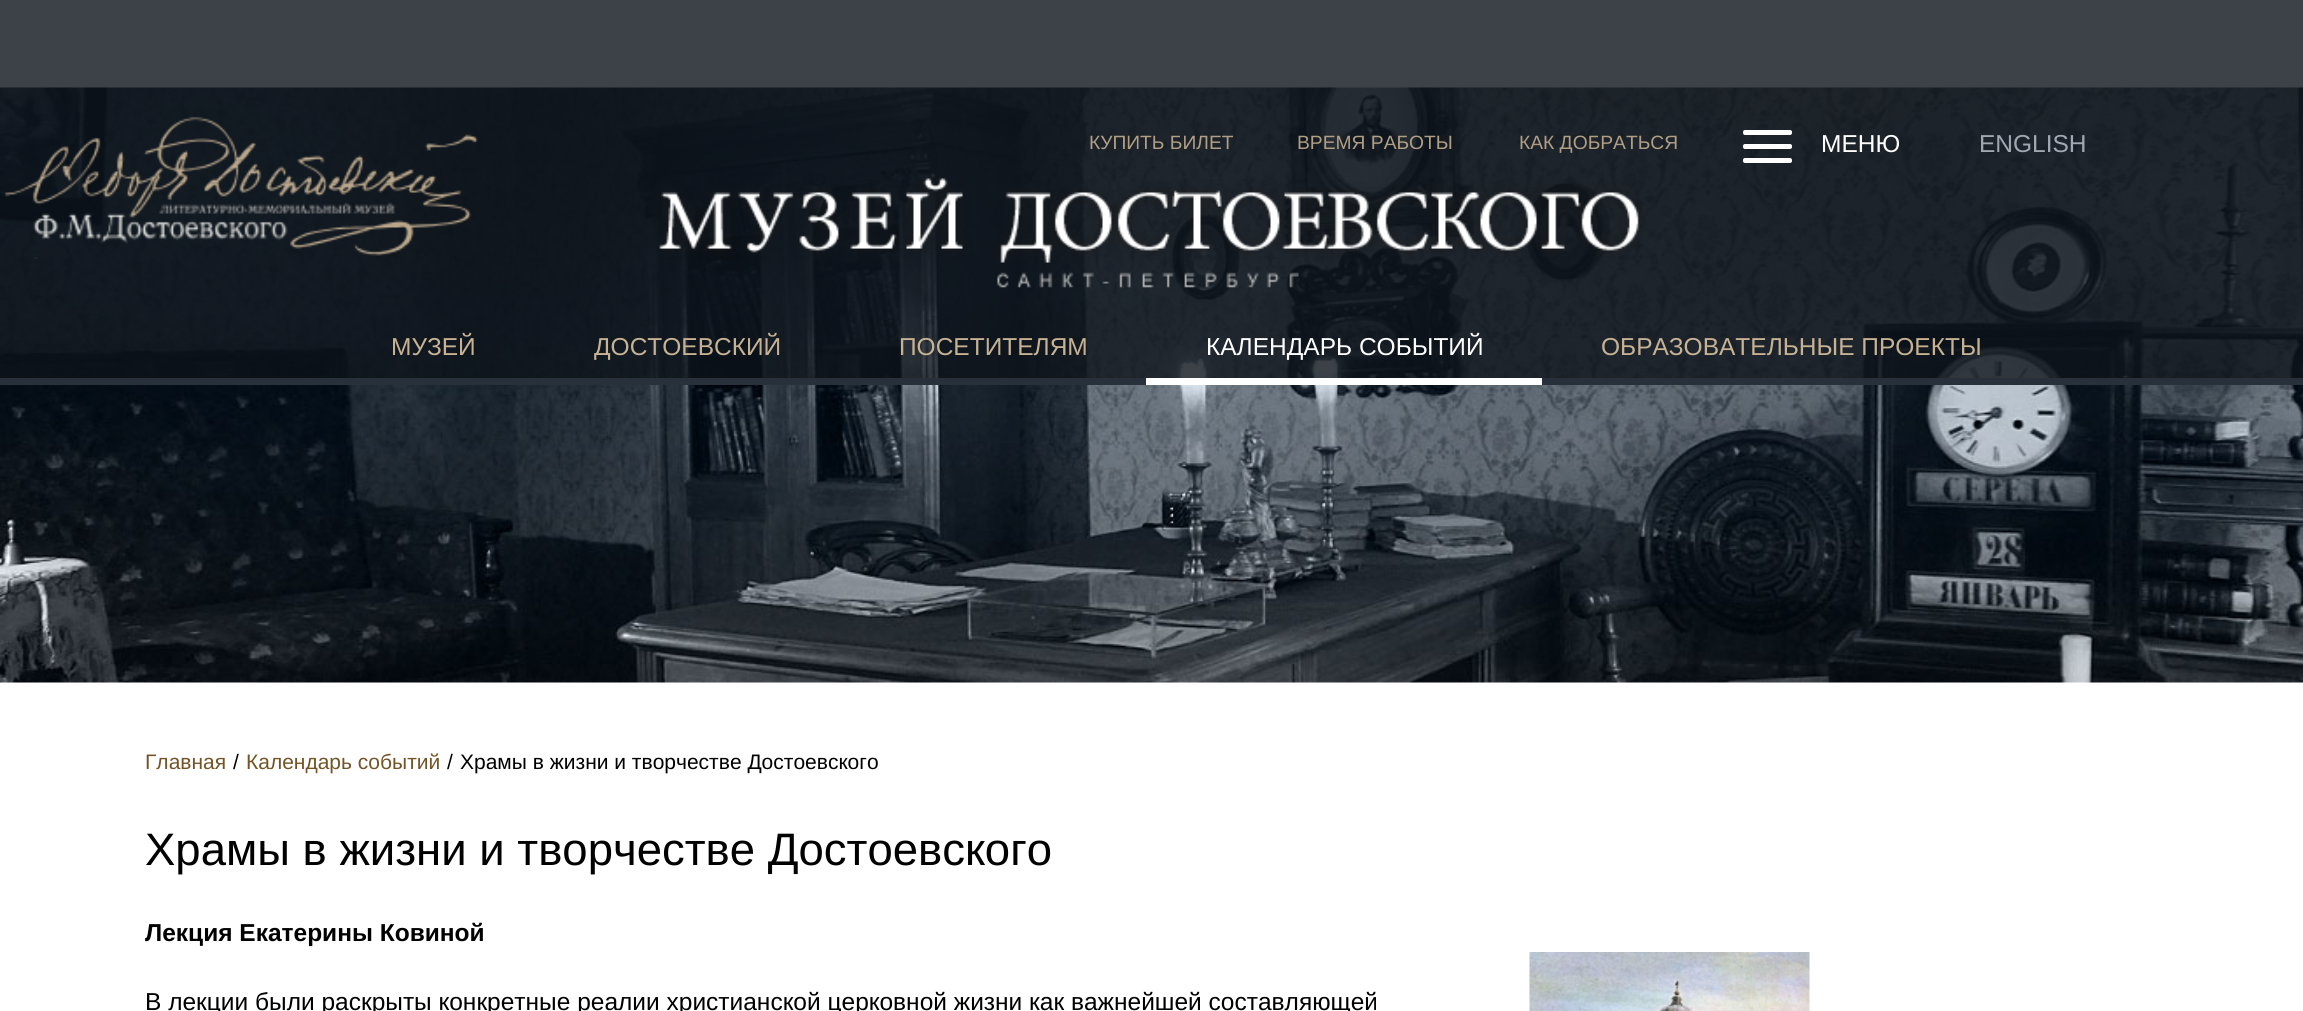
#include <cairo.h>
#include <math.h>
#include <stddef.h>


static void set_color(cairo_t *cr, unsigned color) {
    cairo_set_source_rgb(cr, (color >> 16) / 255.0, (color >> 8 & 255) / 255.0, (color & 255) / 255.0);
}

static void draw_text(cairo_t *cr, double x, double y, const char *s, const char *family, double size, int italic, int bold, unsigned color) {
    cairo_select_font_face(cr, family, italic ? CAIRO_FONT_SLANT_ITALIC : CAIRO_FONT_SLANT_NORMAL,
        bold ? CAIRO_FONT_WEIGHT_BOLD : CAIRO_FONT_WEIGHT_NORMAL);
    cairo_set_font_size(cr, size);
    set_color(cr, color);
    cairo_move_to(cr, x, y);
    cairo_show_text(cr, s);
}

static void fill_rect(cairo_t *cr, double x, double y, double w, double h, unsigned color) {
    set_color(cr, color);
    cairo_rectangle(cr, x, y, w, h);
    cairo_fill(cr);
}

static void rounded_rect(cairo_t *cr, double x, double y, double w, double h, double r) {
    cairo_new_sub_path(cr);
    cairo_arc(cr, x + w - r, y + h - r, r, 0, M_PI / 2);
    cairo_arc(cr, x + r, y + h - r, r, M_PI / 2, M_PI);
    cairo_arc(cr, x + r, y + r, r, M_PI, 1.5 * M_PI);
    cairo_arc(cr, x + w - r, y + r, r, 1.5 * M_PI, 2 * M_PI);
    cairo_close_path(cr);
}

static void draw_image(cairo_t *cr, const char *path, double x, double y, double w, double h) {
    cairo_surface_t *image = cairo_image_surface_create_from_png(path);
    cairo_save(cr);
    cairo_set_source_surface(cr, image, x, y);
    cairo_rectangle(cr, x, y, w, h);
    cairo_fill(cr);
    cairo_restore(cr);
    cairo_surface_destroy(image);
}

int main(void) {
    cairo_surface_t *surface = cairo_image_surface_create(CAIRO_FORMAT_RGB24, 2303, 1011);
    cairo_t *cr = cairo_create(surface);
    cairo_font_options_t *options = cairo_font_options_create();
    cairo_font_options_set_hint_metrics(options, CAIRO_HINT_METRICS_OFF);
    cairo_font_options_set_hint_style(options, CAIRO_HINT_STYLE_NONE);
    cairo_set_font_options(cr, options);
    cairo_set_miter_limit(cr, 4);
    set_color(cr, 0xFFFFFF);
    cairo_paint(cr);
    draw_image(cr, "assets/img1.png", 0, 87, 2303, 596);
    cairo_set_source_rgba(cr, 0.051, 0.075, 0.106, 0.8);
    cairo_rectangle(cr, 0, 0, 2303, 333);
    cairo_fill(cr);
    draw_image(cr, "assets/img2.png", 4, 116, 474, 143);
    draw_text(cr, 1089, 149, "КУПИТЬ БИЛЕТ", "Liberation Sans", 19.25, 0, 0, 0xB09F85);
    draw_text(cr, 1297, 149, "ВРЕМЯ РАБОТЫ", "Liberation Sans", 19.25, 0, 0, 0xB09F85);
    draw_text(cr, 1519, 149, "КАК ДОБРАТЬСЯ", "Liberation Sans", 19.25, 0, 0, 0xB09F85);
    set_color(cr, 0xFFFFFF);
    rounded_rect(cr, 1743, 130, 49, 5, 2);
    cairo_fill(cr);
    rounded_rect(cr, 1743, 144, 49, 5, 2);
    cairo_fill(cr);
    draw_text(cr, 1821, 152, "МЕНЮ", "Liberation Sans", 24.5, 0, 0, 0xFFFFFF);
    rounded_rect(cr, 1743, 158, 49, 5, 2);
    cairo_fill(cr);
    draw_text(cr, 1979, 152, "ENGLISH", "Liberation Sans", 24.5, 0, 0, 0xA0A8B2);
    draw_image(cr, "assets/img3.png", 659, 175, 984, 113);
    cairo_set_source_rgba(cr, 0.051, 0.075, 0.106, 0.8);
    cairo_rectangle(cr, 0, 333, 2303, 45);
    cairo_fill(cr);
    fill_rect(cr, 0, 378, 2303, 7, 0x28303B);
    draw_text(cr, 391, 355, "МУЗЕЙ", "Liberation Sans", 24.5, 0, 0, 0xC7B294);
    draw_text(cr, 594, 355, "ДОСТОЕВСКИЙ", "Liberation Sans", 24.5, 0, 0, 0xC7B294);
    draw_text(cr, 899, 355, "ПОСЕТИТЕЛЯМ", "Liberation Sans", 24.5, 0, 0, 0xC7B294);
    fill_rect(cr, 1146, 378, 396, 7, 0xFFFFFF);
    draw_text(cr, 1206, 355, "КАЛЕНДАРЬ СОБЫТИЙ", "Liberation Sans", 24.5, 0, 0, 0xFFFFFF);
    draw_text(cr, 1601, 355, "ОБРАЗОВАТЕЛЬНЫЕ ПРОЕКТЫ", "Liberation Sans", 24.5, 0, 0, 0xC7B294);
    draw_text(cr, 145, 769, "Главная", "Liberation Sans", 21, 0, 0, 0x735427);
    draw_text(cr, 233, 769, "/", "Liberation Sans", 21, 0, 0, 0x000000);
    draw_text(cr, 246, 769, "Календарь событий", "Liberation Sans", 21, 0, 0, 0x735427);
    draw_text(cr, 447, 769, "/", "Liberation Sans", 21, 0, 0, 0x000000);
    draw_text(cr, 460, 769, "Храмы в жизни и творчестве Достоевского", "Liberation Sans", 21, 0, 0, 0x000000);
    draw_text(cr, 145, 865, "Храмы в жизни и творчестве Достоевского", "Liberation Sans", 45.5, 0, 0, 0x000000);
    draw_text(cr, 145, 941, "Лекция Екатерины Ковиной", "Liberation Sans", 24.5, 0, 1, 0x000000);
    draw_text(cr, 145, 1010, "В лекции были раскрыты конкретные реалии христианской церковной жизни как важнейшей составляющей", "Liberation Sans", 24.5, 0, 0, 0x000000);
    draw_image(cr, "assets/img4.png", 1529, 952, 281, 59);
    cairo_surface_write_to_png(surface, "output.png");
    cairo_font_options_destroy(options);
    cairo_destroy(cr);
    cairo_surface_destroy(surface);
    return 0;
}
